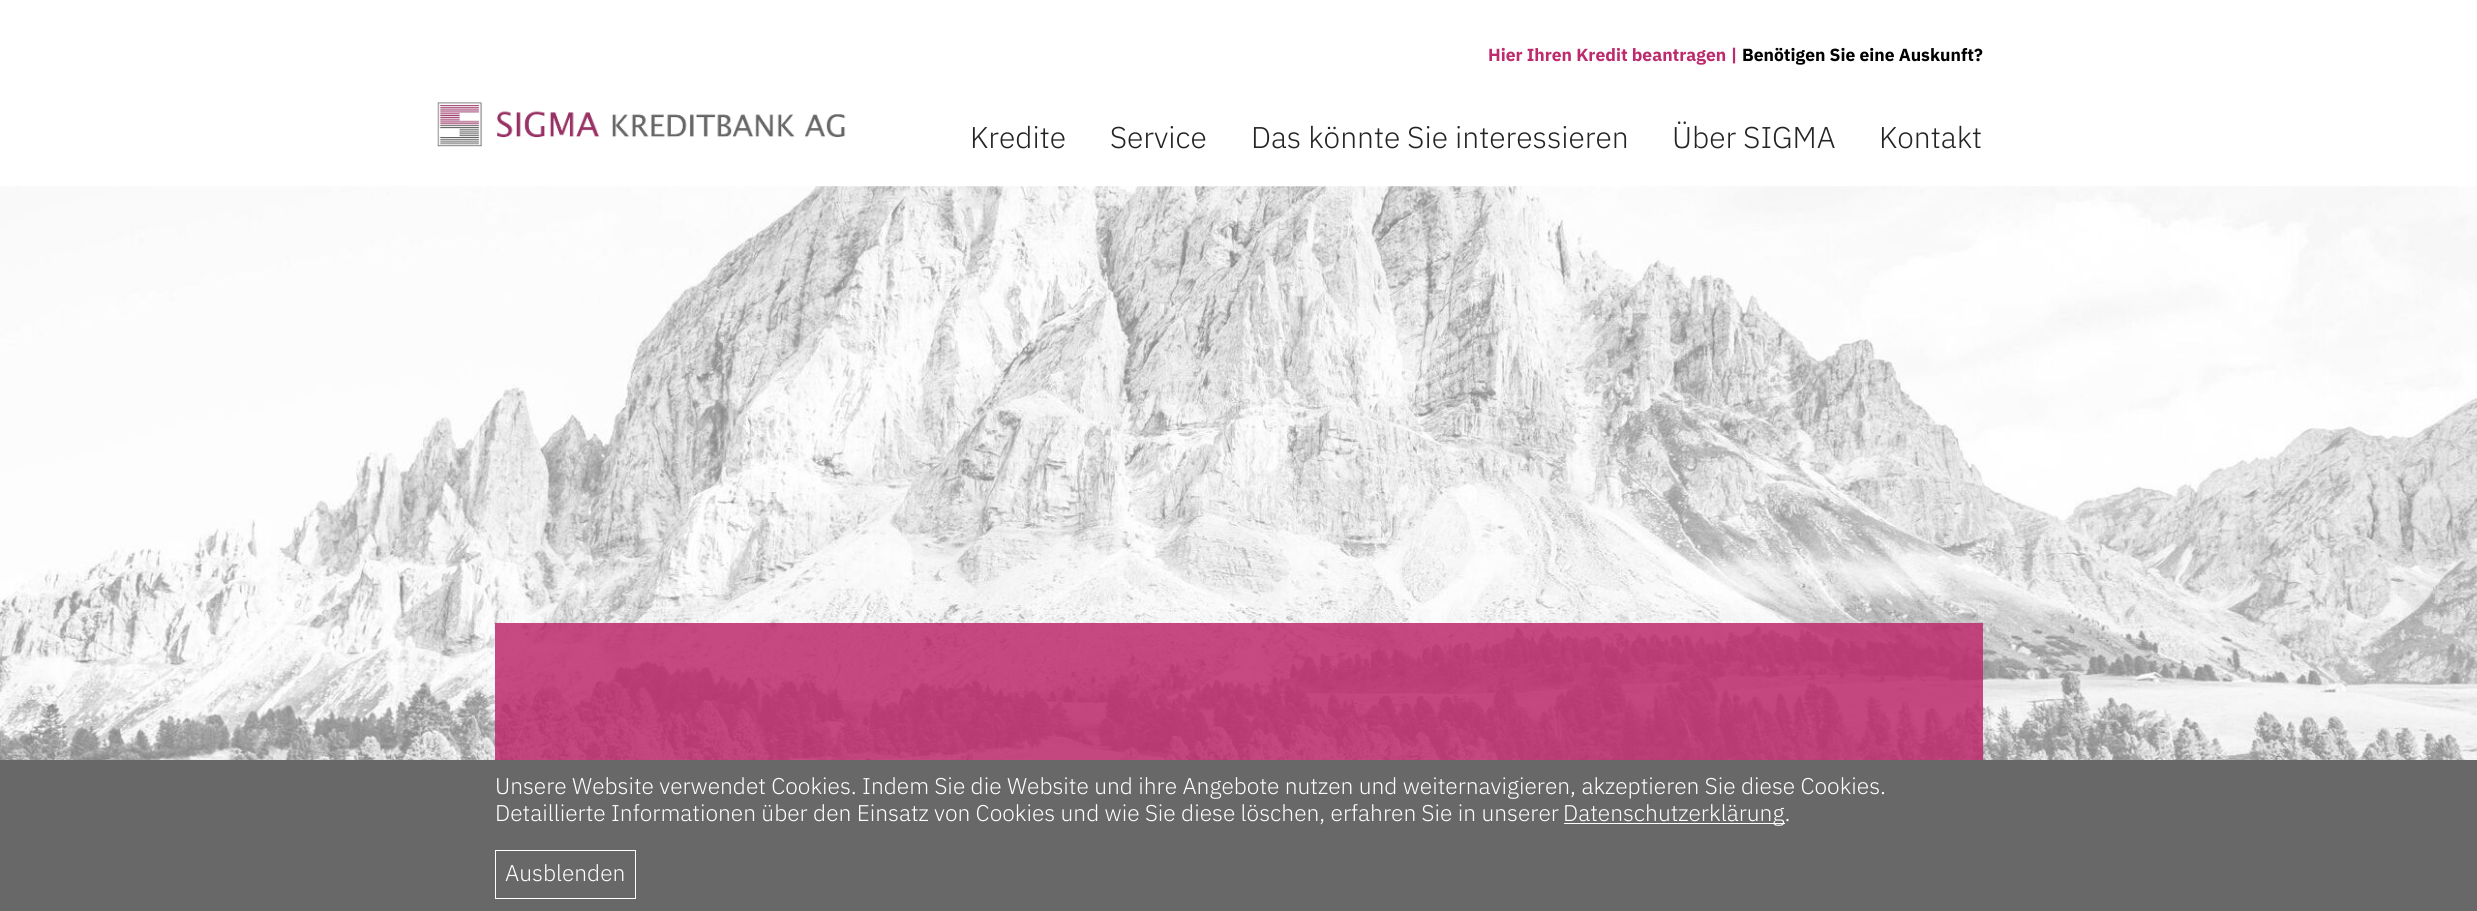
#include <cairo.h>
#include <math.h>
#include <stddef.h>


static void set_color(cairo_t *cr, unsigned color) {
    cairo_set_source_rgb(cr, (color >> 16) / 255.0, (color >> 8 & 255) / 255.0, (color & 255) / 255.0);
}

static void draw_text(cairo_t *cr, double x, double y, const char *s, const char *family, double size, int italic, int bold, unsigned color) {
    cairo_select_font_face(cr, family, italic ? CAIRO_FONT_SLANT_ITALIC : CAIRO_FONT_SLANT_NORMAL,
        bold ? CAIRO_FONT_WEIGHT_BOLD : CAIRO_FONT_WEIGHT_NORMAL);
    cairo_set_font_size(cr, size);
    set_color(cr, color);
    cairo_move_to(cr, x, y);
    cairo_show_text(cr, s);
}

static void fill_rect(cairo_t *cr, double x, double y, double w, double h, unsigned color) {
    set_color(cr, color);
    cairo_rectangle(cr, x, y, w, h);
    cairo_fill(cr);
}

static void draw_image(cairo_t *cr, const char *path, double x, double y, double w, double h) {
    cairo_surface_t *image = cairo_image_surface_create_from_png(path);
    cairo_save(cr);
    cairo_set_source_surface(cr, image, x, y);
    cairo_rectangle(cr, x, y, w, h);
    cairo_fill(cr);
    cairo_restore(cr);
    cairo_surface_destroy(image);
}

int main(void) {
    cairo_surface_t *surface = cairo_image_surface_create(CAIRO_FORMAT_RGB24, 2477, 911);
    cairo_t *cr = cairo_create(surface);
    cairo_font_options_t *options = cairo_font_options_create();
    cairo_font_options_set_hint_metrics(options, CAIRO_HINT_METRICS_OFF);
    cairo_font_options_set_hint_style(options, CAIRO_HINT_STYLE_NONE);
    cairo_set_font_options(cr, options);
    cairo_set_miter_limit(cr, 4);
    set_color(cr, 0xFFFFFF);
    cairo_paint(cr);
    draw_text(cr, 1488, 61, "Hier Ihren Kredit beantragen |", "IBM Plex Sans", 17.5, 0, 1, 0xBD2B6D);
    draw_text(cr, 1742, 61, "Benötigen Sie eine Auskunft?", "IBM Plex Sans", 17.5, 0, 1, 0x000000);
    draw_image(cr, "assets/img1.png", 437, 102, 409, 45);
    draw_text(cr, 970, 148, "Kredite", "IBM Plex Sans Light", 30, 0, 0, 0x242424);
    draw_text(cr, 1110, 148, "Service", "IBM Plex Sans Light", 30, 0, 0, 0x242424);
    draw_text(cr, 1251, 148, "Das könnte Sie interessieren", "IBM Plex Sans Light", 30, 0, 0, 0x242424);
    draw_text(cr, 1672, 148, "Über SIGMA", "IBM Plex Sans Light", 30, 0, 0, 0x242424);
    draw_text(cr, 1879, 148, "Kontakt", "IBM Plex Sans Light", 30, 0, 0, 0x242424);
    draw_image(cr, "assets/img2.png", 0, 186, 2477, 574);
    cairo_set_source_rgba(cr, 0.741, 0.169, 0.427, 0.85);
    cairo_rectangle(cr, 495, 623, 1488, 137);
    cairo_fill(cr);
    fill_rect(cr, 0, 760, 2477, 151, 0x686868);
    draw_text(cr, 495, 794, "Unsere Website verwendet Cookies. Indem Sie die Website und ihre Angebote nutzen und weiternavigieren, akzeptieren Sie diese Cookies.", "IBM Plex Sans Light", 22.75, 0, 0, 0xFFFFFF);
    draw_text(cr, 495, 821, "Detaillierte Informationen über den Einsatz von Cookies und wie Sie diese löschen, erfahren Sie in unserer", "IBM Plex Sans Light", 22.75, 0, 0, 0xFFFFFF);
    fill_rect(cr, 1564, 823, 221, 1, 0xFFFFFF);
    draw_text(cr, 1563, 821, "Datenschutzerklärung.", "IBM Plex Sans Light", 22.75, 0, 0, 0xFFFFFF);
    cairo_rectangle(cr, 495.5, 850.5, 140, 48);
    cairo_set_line_width(cr, 1);
    cairo_stroke(cr);
    draw_text(cr, 505, 881, "Ausblenden", "IBM Plex Sans Light", 22.75, 0, 0, 0xFFFFFF);
    cairo_surface_write_to_png(surface, "output.png");
    cairo_font_options_destroy(options);
    cairo_destroy(cr);
    cairo_surface_destroy(surface);
    return 0;
}
